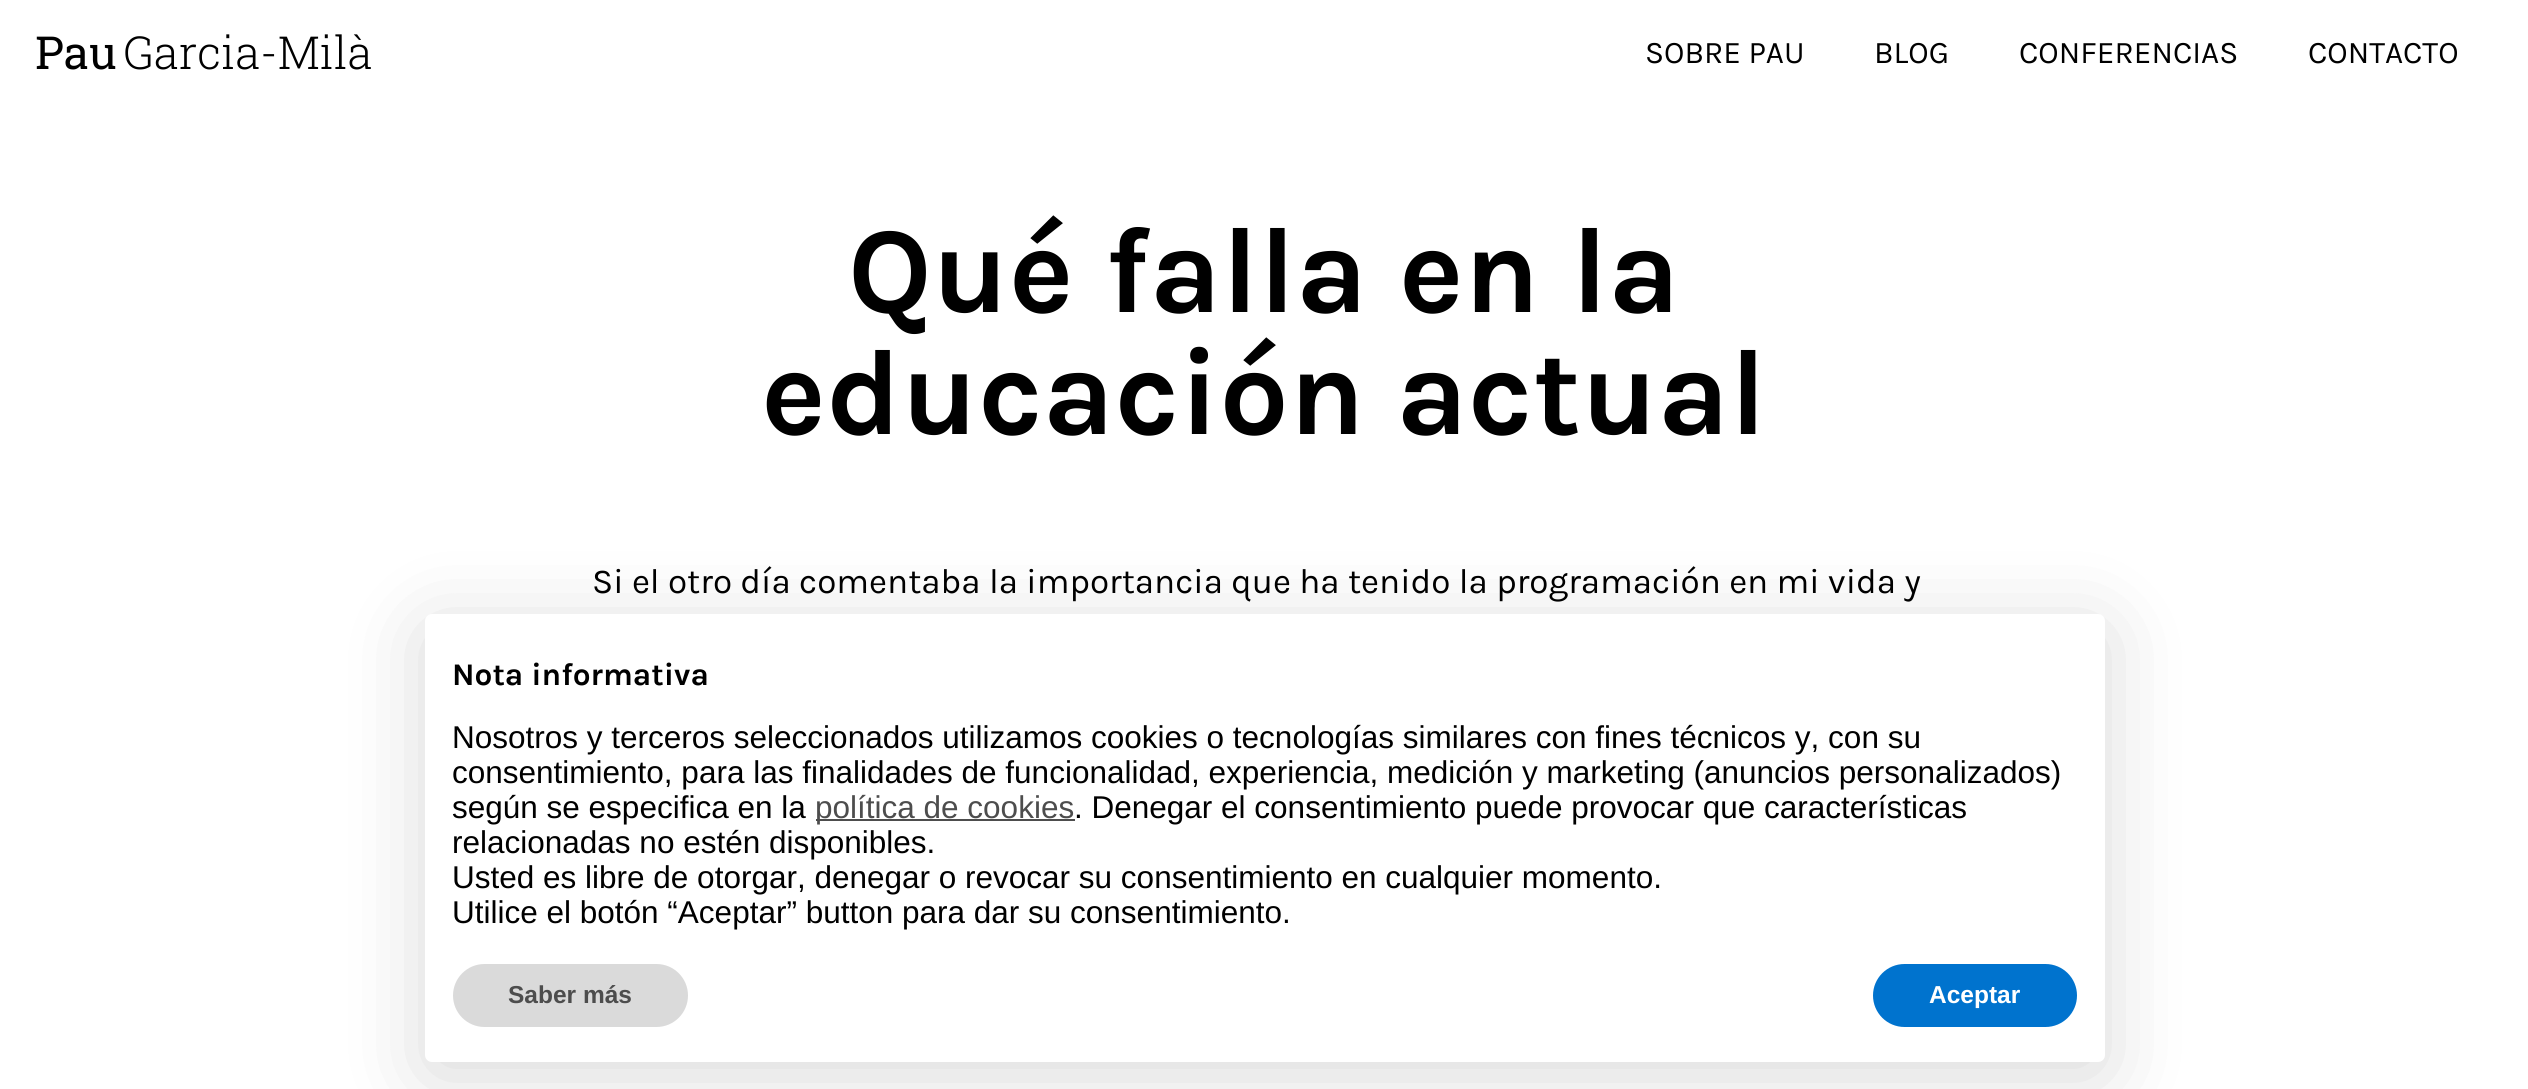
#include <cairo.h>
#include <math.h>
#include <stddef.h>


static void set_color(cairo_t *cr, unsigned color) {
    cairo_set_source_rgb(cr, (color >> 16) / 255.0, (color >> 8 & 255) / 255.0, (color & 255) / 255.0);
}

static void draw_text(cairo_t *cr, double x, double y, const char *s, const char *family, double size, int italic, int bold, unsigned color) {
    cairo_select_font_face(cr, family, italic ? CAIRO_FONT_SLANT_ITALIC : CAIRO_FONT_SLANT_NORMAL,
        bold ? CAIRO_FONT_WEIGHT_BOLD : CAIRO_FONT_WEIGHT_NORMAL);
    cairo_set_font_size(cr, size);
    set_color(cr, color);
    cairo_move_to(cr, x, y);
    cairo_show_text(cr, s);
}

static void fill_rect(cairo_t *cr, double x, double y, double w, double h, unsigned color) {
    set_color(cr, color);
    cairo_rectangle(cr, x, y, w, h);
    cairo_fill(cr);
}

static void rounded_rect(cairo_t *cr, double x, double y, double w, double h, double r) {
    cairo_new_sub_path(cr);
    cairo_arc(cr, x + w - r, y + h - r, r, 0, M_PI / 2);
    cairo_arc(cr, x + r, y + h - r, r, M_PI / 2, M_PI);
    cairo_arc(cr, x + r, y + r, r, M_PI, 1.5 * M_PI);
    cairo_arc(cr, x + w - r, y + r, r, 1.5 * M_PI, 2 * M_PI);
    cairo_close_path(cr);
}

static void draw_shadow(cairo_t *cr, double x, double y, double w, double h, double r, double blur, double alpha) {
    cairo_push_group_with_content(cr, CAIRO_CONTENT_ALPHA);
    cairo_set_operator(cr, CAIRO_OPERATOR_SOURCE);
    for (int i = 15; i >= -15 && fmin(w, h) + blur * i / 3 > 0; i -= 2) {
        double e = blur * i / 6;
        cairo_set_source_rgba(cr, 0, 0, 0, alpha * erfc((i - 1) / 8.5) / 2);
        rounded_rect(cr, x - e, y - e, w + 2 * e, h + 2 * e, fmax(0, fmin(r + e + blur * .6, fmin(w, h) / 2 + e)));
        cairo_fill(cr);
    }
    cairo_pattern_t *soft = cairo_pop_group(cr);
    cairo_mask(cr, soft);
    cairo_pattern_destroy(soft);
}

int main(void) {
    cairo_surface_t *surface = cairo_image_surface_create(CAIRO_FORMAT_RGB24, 2528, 1089);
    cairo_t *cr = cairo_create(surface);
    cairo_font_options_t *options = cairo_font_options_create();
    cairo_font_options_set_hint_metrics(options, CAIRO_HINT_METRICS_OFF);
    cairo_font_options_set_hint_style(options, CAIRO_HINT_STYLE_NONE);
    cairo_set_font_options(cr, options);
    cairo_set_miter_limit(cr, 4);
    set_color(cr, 0xFFFFFF);
    cairo_paint(cr);
    draw_text(cr, 35, 69, "Pau", "Roboto Slab", 45.5, 0, 0, 0x000000);
    draw_text(cr, 123, 69, "Garcia-Milà", "Roboto Slab Light", 45.5, 0, 0, 0x000000);
    draw_text(cr, 1645, 63, "SOBRE PAU", "Karla", 31.5, 0, 0, 0x000000);
    draw_text(cr, 1874, 63, "BLOG", "Karla", 31.5, 0, 0, 0x000000);
    draw_text(cr, 2019, 63, "CONFERENCIAS", "Karla", 31.5, 0, 0, 0x000000);
    draw_text(cr, 2308, 63, "CONTACTO", "Karla", 31.5, 0, 0, 0x000000);
    draw_text(cr, 848, 312, "Qué falla en la", "Karla", 122.5, 0, 1, 0x000000);
    draw_text(cr, 761, 434, "educación actual", "Karla", 122.5, 0, 1, 0x000000);
    draw_text(cr, 592, 593, "Si el otro día comentaba la importancia que ha tenido la programación en mi vida y", "Karla", 35, 0, 0, 0x000000);
    set_color(cr, 0x000000);
    draw_shadow(cr, 425, 628, 1680, 448, 7, 42, 0.15);
    set_color(cr, 0xFFFFFF);
    rounded_rect(cr, 425, 614, 1680, 448, 7);
    cairo_fill(cr);
    draw_text(cr, 452, 685, "Nota informativa", "Karla", 31.5, 0, 1, 0x000000);
    draw_text(cr, 452, 748, "Nosotros y terceros seleccionados utilizamos cookies o tecnologías similares con fines técnicos y, con su", "Liberation Sans", 31.5, 0, 0, 0x000000);
    draw_text(cr, 452, 783, "consentimiento, para las finalidades de funcionalidad, experiencia, medición y marketing (anuncios personalizados)", "Liberation Sans", 31.5, 0, 0, 0x000000);
    draw_text(cr, 452, 818, "según se especifica en la", "Liberation Sans", 31.5, 0, 0, 0x000000);
    fill_rect(cr, 816, 819, 259, 2, 0x4D4D4D);
    draw_text(cr, 815, 818, "política de cookies", "Liberation Sans", 31.5, 0, 0, 0x4D4D4D);
    draw_text(cr, 1074, 818, ". Denegar el consentimiento puede provocar que características", "Liberation Sans", 31.5, 0, 0, 0x000000);
    draw_text(cr, 452, 853, "relacionadas no estén disponibles.", "Liberation Sans", 31.5, 0, 0, 0x000000);
    draw_text(cr, 452, 888, "Usted es libre de otorgar, denegar o revocar su consentimiento en cualquier momento.", "Liberation Sans", 31.5, 0, 0, 0x000000);
    draw_text(cr, 452, 923, "Utilice el botón “Aceptar” button para dar su consentimiento.", "Liberation Sans", 31.5, 0, 0, 0x000000);
    set_color(cr, 0xDADADA);
    rounded_rect(cr, 453, 964, 235, 63, 31.5);
    cairo_fill(cr);
    draw_text(cr, 508, 1003, "Saber más", "Liberation Sans", 24.5, 0, 1, 0x4D4D4D);
    set_color(cr, 0x0073CE);
    rounded_rect(cr, 1873, 964, 204, 63, 31.5);
    cairo_fill(cr);
    draw_text(cr, 1929, 1003, "Aceptar", "Liberation Sans", 24.5, 0, 1, 0xFFFFFF);
    cairo_surface_write_to_png(surface, "output.png");
    cairo_font_options_destroy(options);
    cairo_destroy(cr);
    cairo_surface_destroy(surface);
    return 0;
}
